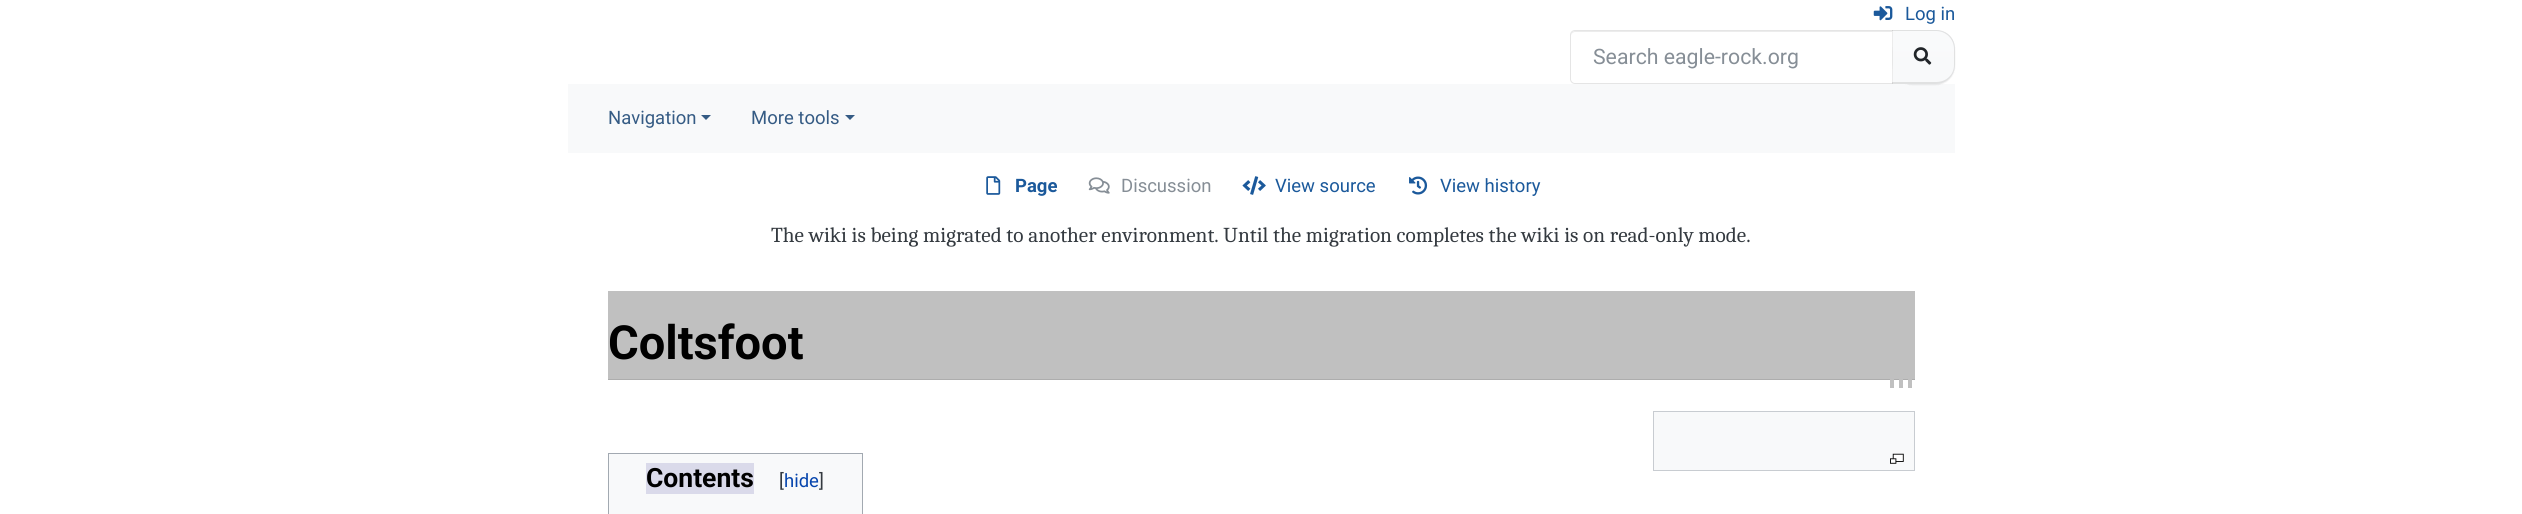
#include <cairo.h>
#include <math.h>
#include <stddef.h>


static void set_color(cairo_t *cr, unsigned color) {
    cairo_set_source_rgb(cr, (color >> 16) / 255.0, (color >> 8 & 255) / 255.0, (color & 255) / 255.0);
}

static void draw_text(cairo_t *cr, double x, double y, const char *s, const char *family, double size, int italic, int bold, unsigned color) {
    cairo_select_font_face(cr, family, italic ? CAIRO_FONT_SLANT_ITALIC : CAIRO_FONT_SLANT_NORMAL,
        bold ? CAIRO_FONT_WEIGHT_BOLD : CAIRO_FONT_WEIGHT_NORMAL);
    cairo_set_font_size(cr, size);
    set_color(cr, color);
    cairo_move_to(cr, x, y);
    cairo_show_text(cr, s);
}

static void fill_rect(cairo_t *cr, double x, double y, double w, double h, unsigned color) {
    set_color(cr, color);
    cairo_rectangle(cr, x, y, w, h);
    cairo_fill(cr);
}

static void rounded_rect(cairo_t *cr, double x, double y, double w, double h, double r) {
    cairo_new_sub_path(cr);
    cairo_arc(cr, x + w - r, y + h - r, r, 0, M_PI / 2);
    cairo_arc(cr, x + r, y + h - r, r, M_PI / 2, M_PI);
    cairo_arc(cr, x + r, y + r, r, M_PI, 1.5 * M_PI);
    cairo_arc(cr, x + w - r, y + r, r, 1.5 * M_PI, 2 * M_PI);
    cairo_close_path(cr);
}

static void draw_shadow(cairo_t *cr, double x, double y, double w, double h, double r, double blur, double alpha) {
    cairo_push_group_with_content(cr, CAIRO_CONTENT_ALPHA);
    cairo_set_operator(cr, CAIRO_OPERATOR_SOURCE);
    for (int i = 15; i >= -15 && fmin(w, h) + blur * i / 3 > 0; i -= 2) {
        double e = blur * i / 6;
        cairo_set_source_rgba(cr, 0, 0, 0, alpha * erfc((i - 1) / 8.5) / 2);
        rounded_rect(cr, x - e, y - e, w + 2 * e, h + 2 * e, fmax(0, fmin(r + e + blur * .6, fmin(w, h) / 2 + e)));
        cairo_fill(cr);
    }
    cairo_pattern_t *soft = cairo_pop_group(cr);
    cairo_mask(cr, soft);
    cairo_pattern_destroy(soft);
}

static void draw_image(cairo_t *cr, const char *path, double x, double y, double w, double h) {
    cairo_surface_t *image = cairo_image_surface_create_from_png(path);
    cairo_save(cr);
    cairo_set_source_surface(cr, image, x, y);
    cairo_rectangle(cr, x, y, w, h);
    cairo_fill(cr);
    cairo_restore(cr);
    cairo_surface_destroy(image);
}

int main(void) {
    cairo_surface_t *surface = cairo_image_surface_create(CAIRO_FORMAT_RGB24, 2522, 514);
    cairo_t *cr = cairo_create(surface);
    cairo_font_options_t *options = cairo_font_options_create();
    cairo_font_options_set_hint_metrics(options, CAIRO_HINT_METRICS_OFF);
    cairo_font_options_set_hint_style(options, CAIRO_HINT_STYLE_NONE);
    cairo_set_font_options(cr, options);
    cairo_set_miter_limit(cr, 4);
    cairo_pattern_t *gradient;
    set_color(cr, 0xFFFFFF);
    cairo_paint(cr);
    draw_image(cr, "assets/img1.png", 1873, 6, 20, 15);
    draw_text(cr, 1905, 20, "Log in", "Roboto", 18.5, 0, 0, 0x1B599B);
    set_color(cr, 0xECECEC);
    cairo_new_path(cr);
    cairo_move_to(cr, 1575, 32);
    cairo_line_to(cr, 1892, 32);
    cairo_line_to(cr, 1892, 83);
    cairo_line_to(cr, 1893, 83);
    cairo_line_to(cr, 1893, 31);
    cairo_line_to(cr, 1575, 31);
    cairo_curve_to(cr, 1573, 31, 1571, 33, 1571, 35);
    cairo_line_to(cr, 1571, 36);
    cairo_curve_to(cr, 1571, 34, 1573, 32, 1575, 32);
    cairo_close_path(cr);
    cairo_fill(cr);
    cairo_new_path(cr);
    cairo_move_to(cr, 1575, 30.5);
    cairo_line_to(cr, 1893.5, 30.5);
    cairo_line_to(cr, 1893.5, 83.5);
    cairo_line_to(cr, 1575, 83.5);
    cairo_curve_to(cr, 1572.5, 83.5, 1570.5, 81.5, 1570.5, 79);
    cairo_line_to(cr, 1570.5, 35);
    cairo_curve_to(cr, 1570.5, 32.5, 1572.5, 30.5, 1575, 30.5);
    cairo_close_path(cr);
    set_color(cr, 0xE5E5E5);
    cairo_set_line_width(cr, 1);
    cairo_stroke(cr);
    draw_text(cr, 1593, 64, "Search eagle-rock.org", "Roboto", 21.25, 0, 0, 0x868E96);
    fill_rect(cr, 568, 84, 1387, 69, 0xF8F9FA);
    set_color(cr, 0x000000);
    draw_shadow(cr, 1893, 31, 62, 54, 19, 0.5, 0.07);
    set_color(cr, 0xF8F9FA);
    cairo_new_path(cr);
    cairo_move_to(cr, 1893, 30);
    cairo_line_to(cr, 1936, 30);
    cairo_curve_to(cr, 1946.5, 30, 1955, 38.5, 1955, 49);
    cairo_line_to(cr, 1955, 65);
    cairo_curve_to(cr, 1955, 75.5, 1946.5, 84, 1936, 84);
    cairo_line_to(cr, 1893, 84);
    cairo_close_path(cr);
    cairo_fill(cr);
    cairo_save(cr);
    cairo_new_path(cr);
    cairo_move_to(cr, 1893, 30);
    cairo_line_to(cr, 1936, 30);
    cairo_curve_to(cr, 1946.5, 30, 1955, 38.5, 1955, 49);
    cairo_line_to(cr, 1955, 65);
    cairo_curve_to(cr, 1955, 75.5, 1946.5, 84, 1936, 84);
    cairo_line_to(cr, 1893, 84);
    cairo_close_path(cr);
    cairo_clip(cr);
    gradient = cairo_pattern_create_linear(1923, 31, 1923, 83);
    cairo_pattern_add_color_stop_rgba(gradient, 0, 0.976, 0.98, 0.984, 1);
    cairo_pattern_add_color_stop_rgba(gradient, 1, 0.973, 0.976, 0.98, 1);
    cairo_set_source(cr, gradient);
    cairo_pattern_destroy(gradient);
    cairo_rectangle(cr, 1893, 31, 62, 52);
    cairo_fill(cr);
    cairo_restore(cr);
    cairo_set_source_rgba(cr, 0, 0, 0, 0.1);
    cairo_set_fill_rule(cr, CAIRO_FILL_RULE_EVEN_ODD);
    cairo_new_path(cr);
    cairo_move_to(cr, 1892, 30);
    cairo_line_to(cr, 1936, 30);
    cairo_curve_to(cr, 1947, 30, 1955, 38, 1955, 49);
    cairo_line_to(cr, 1955, 65);
    cairo_curve_to(cr, 1955, 75, 1947, 84, 1936, 84);
    cairo_line_to(cr, 1892, 84);
    cairo_close_path(cr);
    cairo_move_to(cr, 1892, 31);
    cairo_line_to(cr, 1936, 31);
    cairo_curve_to(cr, 1946, 31, 1954, 39, 1954, 49);
    cairo_line_to(cr, 1954, 65);
    cairo_curve_to(cr, 1954, 75, 1946, 82, 1936, 82);
    cairo_line_to(cr, 1892, 82);
    cairo_close_path(cr);
    cairo_fill(cr);
    draw_image(cr, "assets/img2.png", 1913, 47, 19, 18);
    draw_text(cr, 608, 124, "Navigation", "Roboto", 18.5, 0, 0, 0x355B84);
    cairo_set_fill_rule(cr, CAIRO_FILL_RULE_WINDING);
    cairo_new_path(cr);
    cairo_move_to(cr, 701, 115);
    cairo_line_to(cr, 711, 115);
    cairo_line_to(cr, 706, 120);
    cairo_close_path(cr);
    cairo_fill(cr);
    draw_text(cr, 751, 124, "More tools", "Roboto", 18.5, 0, 0, 0x355B84);
    cairo_new_path(cr);
    cairo_move_to(cr, 845, 115);
    cairo_line_to(cr, 855, 115);
    cairo_line_to(cr, 850, 120);
    cairo_close_path(cr);
    cairo_fill(cr);
    draw_image(cr, "assets/img3.png", 986, 176, 15, 19);
    draw_text(cr, 1015, 192, "Page", "Roboto", 18.5, 0, 1, 0x1B599B);
    draw_image(cr, "assets/img4.png", 1088, 177, 22, 17);
    draw_text(cr, 1121, 192, "Discussion", "Roboto", 18.5, 0, 0, 0x868E96);
    draw_image(cr, "assets/img5.png", 1242, 176, 24, 19);
    draw_text(cr, 1275, 192, "View source", "Roboto", 18.5, 0, 0, 0x1B599B);
    draw_image(cr, "assets/img6.png", 1409, 176, 19, 19);
    draw_text(cr, 1440, 192, "View history", "Roboto", 18.5, 0, 0, 0x1B599B);
    draw_text(cr, 771, 242, "The wiki is being migrated to another environment. Until the migration completes the wiki is on read-only mode.", "Caladea", 21.25, 0, 0, 0x343A40);
    fill_rect(cr, 608, 291, 1307, 88, 0xC0C0C0);
    fill_rect(cr, 608, 379, 1307, 1, 0xADADAD);
    draw_text(cr, 608, 359, "Coltsfoot", "Roboto", 47, 0, 1, 0x000000);
    fill_rect(cr, 1899, 373, 4, 15, 0xC0C0C0);
    fill_rect(cr, 1890, 373, 4, 15, 0xC0C0C0);
    fill_rect(cr, 1908, 373, 4, 15, 0xC0C0C0);
    set_color(cr, 0xF8F9FA);
    cairo_rectangle(cr, 1653.5, 411.5, 261, 59);
    cairo_fill_preserve(cr);
    set_color(cr, 0xC8CCD1);
    cairo_stroke(cr);
    draw_image(cr, "assets/img7.png", 1890, 453, 14, 11);
    set_color(cr, 0xF8F9FA);
    cairo_rectangle(cr, 608.5, 453.5, 254, 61);
    cairo_fill_preserve(cr);
    set_color(cr, 0xA2A9B1);
    cairo_stroke(cr);
    fill_rect(cr, 646, 463, 108, 31, 0xDADAEA);
    draw_text(cr, 646, 487, "Contents", "Roboto", 26.5, 0, 1, 0x000000);
    draw_text(cr, 779, 487, "[", "Roboto", 18.5, 0, 0, 0x343A40);
    draw_text(cr, 784, 487, "hide", "Roboto", 18.5, 0, 0, 0x0645AD);
    draw_text(cr, 819, 487, "]", "Roboto", 18.5, 0, 0, 0x343A40);
    cairo_surface_write_to_png(surface, "output.png");
    cairo_font_options_destroy(options);
    cairo_destroy(cr);
    cairo_surface_destroy(surface);
    return 0;
}
